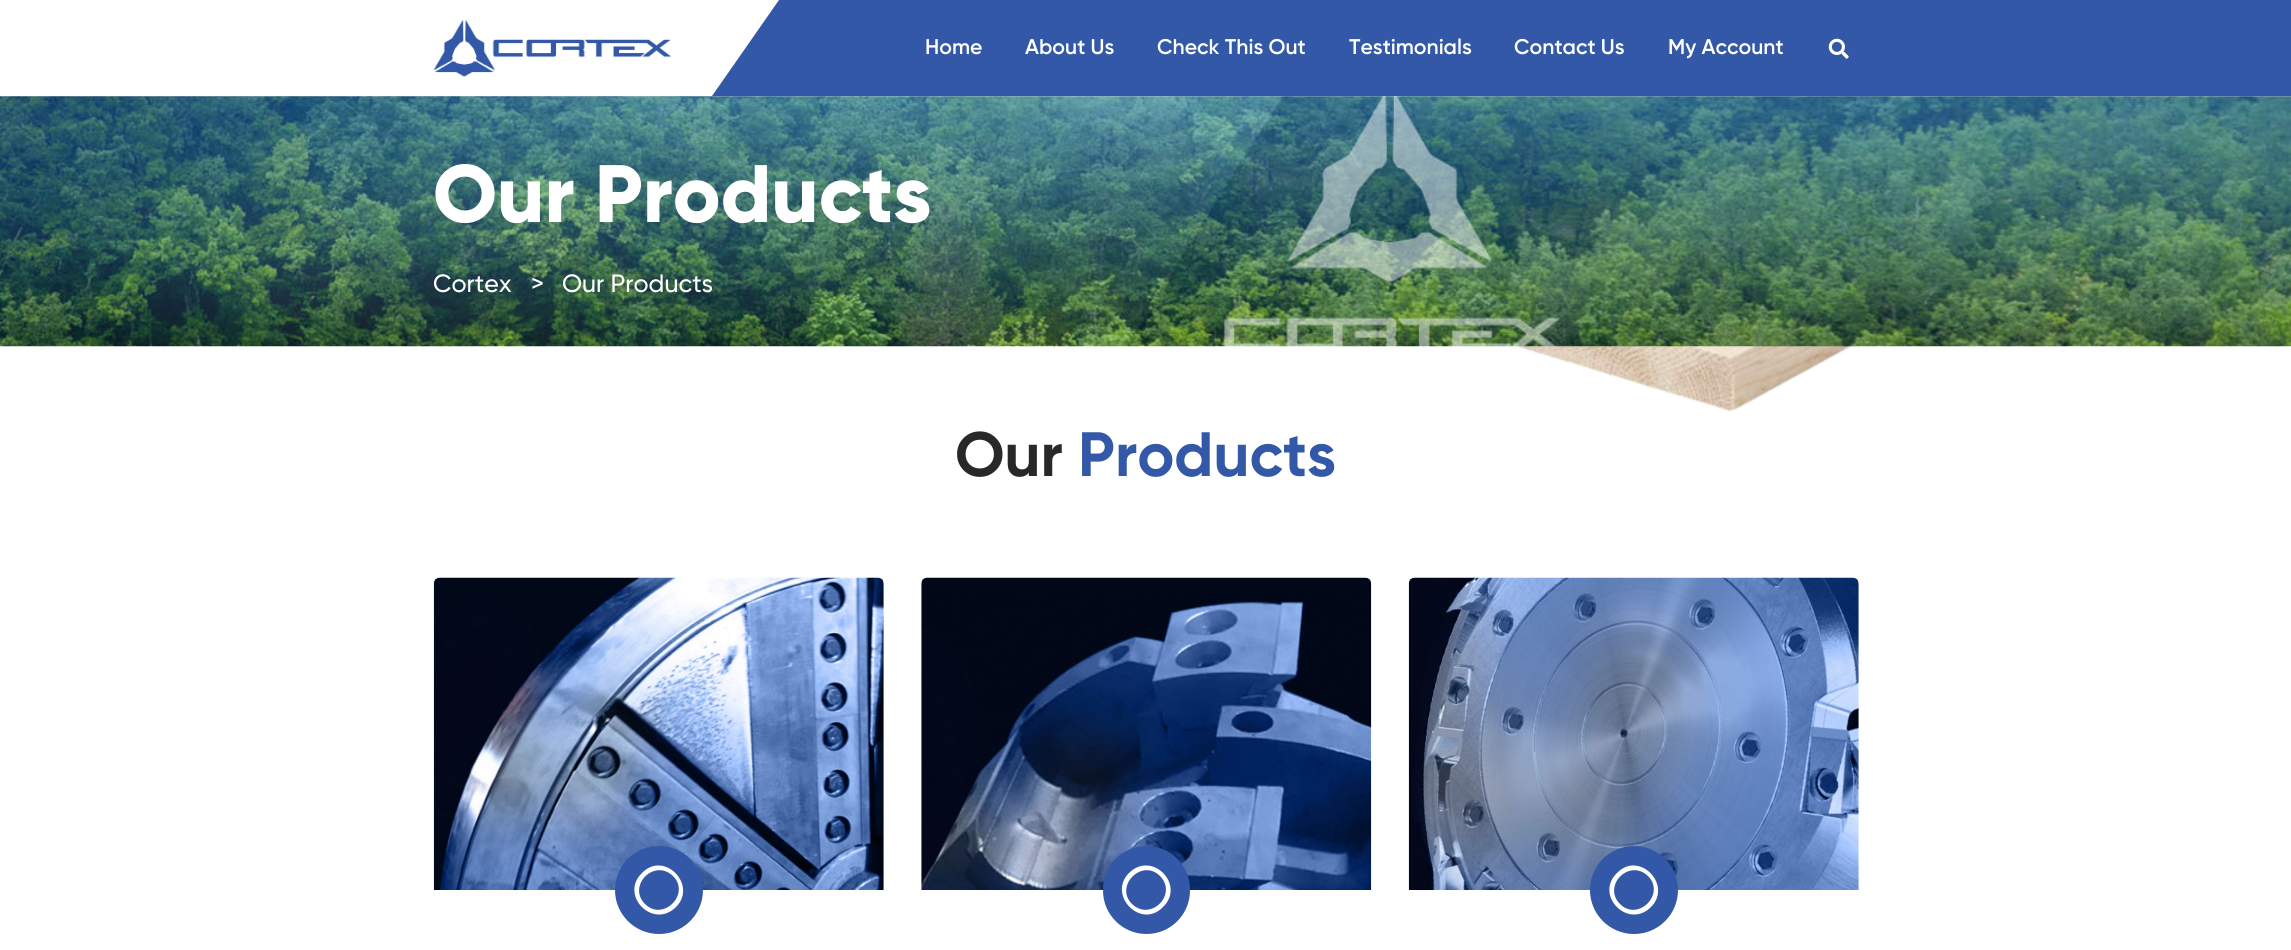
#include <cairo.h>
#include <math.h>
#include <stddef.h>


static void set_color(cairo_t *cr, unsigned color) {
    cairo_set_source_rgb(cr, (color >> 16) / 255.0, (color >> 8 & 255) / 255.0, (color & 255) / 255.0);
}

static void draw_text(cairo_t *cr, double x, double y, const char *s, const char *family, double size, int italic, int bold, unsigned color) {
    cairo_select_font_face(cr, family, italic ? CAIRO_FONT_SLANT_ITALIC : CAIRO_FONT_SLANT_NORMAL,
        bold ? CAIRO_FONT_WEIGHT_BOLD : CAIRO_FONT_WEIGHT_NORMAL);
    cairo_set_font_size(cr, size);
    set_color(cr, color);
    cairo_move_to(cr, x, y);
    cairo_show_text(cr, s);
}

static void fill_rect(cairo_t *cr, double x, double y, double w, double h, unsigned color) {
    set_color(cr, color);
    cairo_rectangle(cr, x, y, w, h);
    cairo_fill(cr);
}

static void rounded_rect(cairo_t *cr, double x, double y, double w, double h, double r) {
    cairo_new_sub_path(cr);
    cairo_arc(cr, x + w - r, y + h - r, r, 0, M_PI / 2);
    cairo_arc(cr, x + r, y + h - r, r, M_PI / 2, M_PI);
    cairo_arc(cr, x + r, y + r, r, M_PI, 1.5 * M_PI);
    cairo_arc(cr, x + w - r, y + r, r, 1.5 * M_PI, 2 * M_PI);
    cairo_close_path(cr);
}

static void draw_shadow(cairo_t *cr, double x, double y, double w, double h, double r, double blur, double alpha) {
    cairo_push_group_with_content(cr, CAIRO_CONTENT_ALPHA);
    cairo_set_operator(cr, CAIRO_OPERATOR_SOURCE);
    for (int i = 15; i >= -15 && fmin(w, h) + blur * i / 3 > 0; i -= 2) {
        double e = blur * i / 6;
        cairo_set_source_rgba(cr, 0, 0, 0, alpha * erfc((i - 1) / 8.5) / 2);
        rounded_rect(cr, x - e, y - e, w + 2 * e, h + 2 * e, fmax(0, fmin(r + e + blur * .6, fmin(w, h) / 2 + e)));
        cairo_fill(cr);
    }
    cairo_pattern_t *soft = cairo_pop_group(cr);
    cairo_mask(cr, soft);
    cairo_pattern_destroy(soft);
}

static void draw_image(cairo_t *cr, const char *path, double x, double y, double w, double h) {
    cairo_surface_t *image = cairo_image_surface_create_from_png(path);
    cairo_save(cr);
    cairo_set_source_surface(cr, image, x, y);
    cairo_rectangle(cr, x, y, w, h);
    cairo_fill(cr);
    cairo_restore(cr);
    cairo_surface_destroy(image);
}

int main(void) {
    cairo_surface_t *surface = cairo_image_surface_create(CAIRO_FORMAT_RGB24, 2291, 950);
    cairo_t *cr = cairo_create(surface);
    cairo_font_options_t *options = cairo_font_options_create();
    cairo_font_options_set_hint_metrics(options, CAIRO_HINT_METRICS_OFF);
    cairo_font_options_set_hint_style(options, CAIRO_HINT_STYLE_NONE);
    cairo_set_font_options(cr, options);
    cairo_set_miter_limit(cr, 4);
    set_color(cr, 0xFFFFFF);
    cairo_paint(cr);
    draw_image(cr, "assets/img1.png", 0, 96, 1893, 316);
    set_color(cr, 0x000000);
    draw_shadow(cr, 0, 0, 2291, 96, 0, 6, 0.2);
    fill_rect(cr, 712, 0, 1579, 96, 0x3258A7);
    set_color(cr, 0xFFFFFF);
    cairo_new_path(cr);
    cairo_move_to(cr, -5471, 0);
    cairo_line_to(cr, 779, 0);
    cairo_line_to(cr, 712, 96);
    cairo_line_to(cr, -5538, 96);
    cairo_close_path(cr);
    cairo_fill(cr);
    draw_image(cr, "assets/img2.png", 433, 20, 239, 57);
    draw_text(cr, 925, 54, "Home", "Gilroy SemiBold", 21.25, 0, 0, 0xFFFFFF);
    draw_text(cr, 1025, 54, "About Us", "Gilroy SemiBold", 21.25, 0, 0, 0xFFFFFF);
    draw_text(cr, 1157, 54, "Check This Out", "Gilroy SemiBold", 21.25, 0, 0, 0xFFFFFF);
    draw_text(cr, 1349, 54, "Testimonials", "Gilroy SemiBold", 21.25, 0, 0, 0xFFFFFF);
    draw_text(cr, 1514, 54, "Contact Us", "Gilroy SemiBold", 21.25, 0, 0, 0xFFFFFF);
    draw_text(cr, 1668, 54, "My Account", "Gilroy SemiBold", 21.25, 0, 0, 0xFFFFFF);
    draw_image(cr, "assets/img3.png", 1828, 38, 21, 21);
    draw_image(cr, "assets/img4.png", 0, 96, 2291, 251);
    draw_text(cr, 433, 222, "Our Products", "Gilroy ExtraBold", 81.25, 0, 0, 0xFFFFFF);
    draw_text(cr, 433, 292, "Cortex", "Gilroy Medium", 25, 0, 0, 0xFFFFFF);
    draw_text(cr, 531, 292, ">", "Gilroy Medium", 25, 0, 0, 0xFFFFFF);
    draw_text(cr, 562, 292, "Our Products", "Gilroy Medium", 25, 0, 0, 0xFFFFFF);
    draw_text(cr, 955, 476, "Our", "Gilroy", 62.5, 0, 1, 0x282828);
    draw_text(cr, 1078, 476, "Products", "Gilroy", 62.5, 0, 1, 0x3258A7);
    draw_image(cr, "assets/img5.png", 433, 577, 451, 313);
    cairo_arc(cr, 659, 890, 44, 0, 2 * M_PI);
    cairo_fill(cr);
    set_color(cr, 0xFFFFFF);
    cairo_new_path(cr);
    cairo_move_to(cr, 642, 873);
    cairo_curve_to(cr, 664, 850, 698, 885, 676, 907);
    cairo_curve_to(cr, 653, 930, 619, 895, 642, 873);
    cairo_close_path(cr);
    cairo_move_to(cr, 645, 904);
    cairo_curve_to(cr, 663, 922, 691, 894, 673, 876);
    cairo_curve_to(cr, 654, 858, 627, 886, 645, 904);
    cairo_close_path(cr);
    cairo_fill(cr);
    draw_image(cr, "assets/img6.png", 921, 577, 451, 313);
    set_color(cr, 0x3258A7);
    rounded_rect(cr, 1103, 846, 87, 88, 43.5);
    cairo_fill(cr);
    set_color(cr, 0xFFFFFF);
    cairo_new_path(cr);
    cairo_move_to(cr, 1129, 873);
    cairo_curve_to(cr, 1152, 850, 1186, 885, 1163, 907);
    cairo_curve_to(cr, 1141, 930, 1107, 895, 1129, 873);
    cairo_close_path(cr);
    cairo_move_to(cr, 1132, 904);
    cairo_curve_to(cr, 1151, 922, 1178, 894, 1160, 876);
    cairo_curve_to(cr, 1142, 858, 1114, 886, 1132, 904);
    cairo_close_path(cr);
    cairo_fill(cr);
    draw_image(cr, "assets/img7.png", 1408, 577, 451, 313);
    set_color(cr, 0x3258A7);
    cairo_arc(cr, 1634, 890, 44, 0, 2 * M_PI);
    cairo_fill(cr);
    set_color(cr, 0xFFFFFF);
    cairo_new_path(cr);
    cairo_move_to(cr, 1617, 873);
    cairo_curve_to(cr, 1639, 850, 1673, 885, 1651, 907);
    cairo_curve_to(cr, 1628, 930, 1594, 895, 1617, 873);
    cairo_close_path(cr);
    cairo_move_to(cr, 1620, 904);
    cairo_curve_to(cr, 1638, 922, 1666, 894, 1648, 876);
    cairo_curve_to(cr, 1629, 858, 1602, 886, 1620, 904);
    cairo_close_path(cr);
    cairo_fill(cr);
    cairo_surface_write_to_png(surface, "output.png");
    cairo_font_options_destroy(options);
    cairo_destroy(cr);
    cairo_surface_destroy(surface);
    return 0;
}
